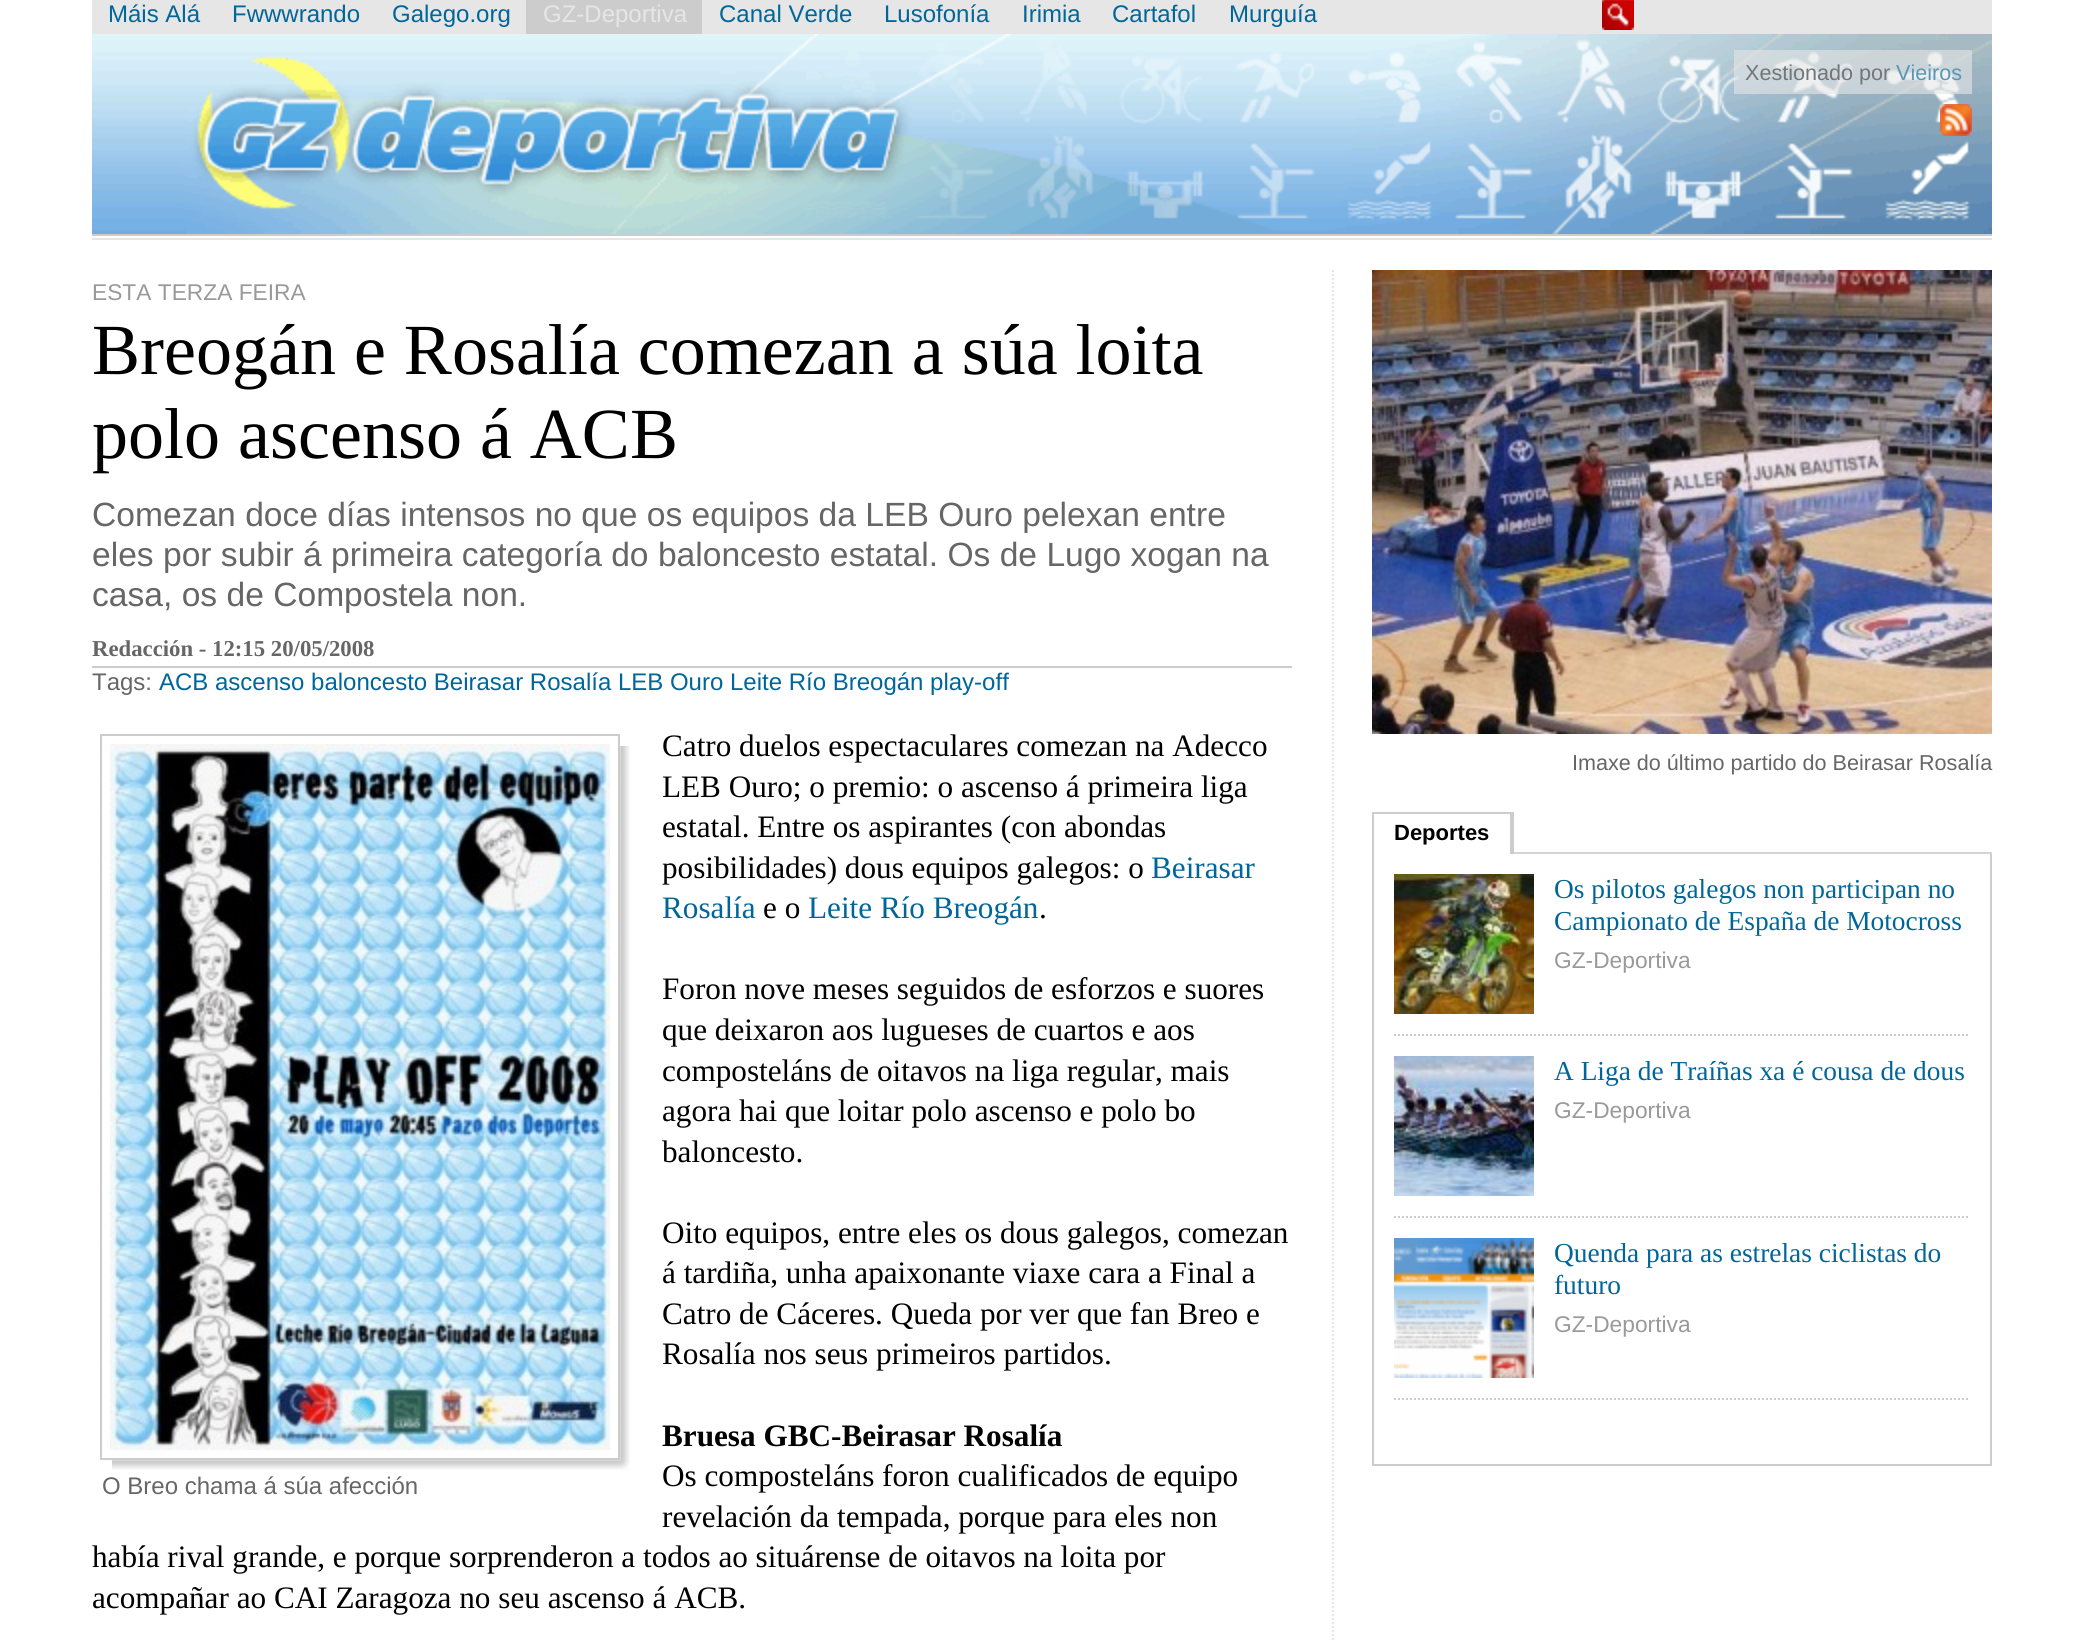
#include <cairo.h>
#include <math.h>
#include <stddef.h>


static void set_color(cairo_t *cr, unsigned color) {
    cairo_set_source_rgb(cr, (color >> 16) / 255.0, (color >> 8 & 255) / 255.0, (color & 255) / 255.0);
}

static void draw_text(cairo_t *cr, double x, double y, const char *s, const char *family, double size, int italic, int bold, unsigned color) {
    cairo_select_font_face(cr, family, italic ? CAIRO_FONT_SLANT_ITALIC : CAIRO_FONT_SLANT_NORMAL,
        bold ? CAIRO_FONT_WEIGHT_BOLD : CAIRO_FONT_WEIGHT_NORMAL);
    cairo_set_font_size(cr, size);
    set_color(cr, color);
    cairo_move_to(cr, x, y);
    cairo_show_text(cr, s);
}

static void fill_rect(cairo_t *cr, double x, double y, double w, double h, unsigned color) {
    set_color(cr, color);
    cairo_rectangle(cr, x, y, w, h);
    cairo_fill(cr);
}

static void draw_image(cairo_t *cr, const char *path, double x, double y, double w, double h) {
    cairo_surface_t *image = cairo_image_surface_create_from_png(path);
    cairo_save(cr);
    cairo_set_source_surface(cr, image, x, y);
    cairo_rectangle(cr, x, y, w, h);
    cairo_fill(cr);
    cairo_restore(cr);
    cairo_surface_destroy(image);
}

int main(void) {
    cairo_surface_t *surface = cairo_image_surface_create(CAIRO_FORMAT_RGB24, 2083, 1641);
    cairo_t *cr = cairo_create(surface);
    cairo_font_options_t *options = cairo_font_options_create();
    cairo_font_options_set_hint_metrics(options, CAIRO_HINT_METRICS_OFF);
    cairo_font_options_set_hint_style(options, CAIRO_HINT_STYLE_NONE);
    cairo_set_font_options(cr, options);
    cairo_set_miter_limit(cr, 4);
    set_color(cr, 0xFFFFFF);
    cairo_paint(cr);
    fill_rect(cr, 92, 0, 1900, 34, 0xE6E6E6);
    draw_text(cr, 108, 22, "Máis Alá", "Liberation Sans", 24, 0, 0, 0x006699);
    draw_text(cr, 232, 22, "Fwwwrando", "Liberation Sans", 24, 0, 0, 0x006699);
    draw_text(cr, 392, 22, "Galego.org", "Liberation Sans", 24, 0, 0, 0x006699);
    fill_rect(cr, 526, 0, 176, 34, 0xCCCCCC);
    draw_text(cr, 543, 22, "GZ-Deportiva", "Liberation Sans", 24, 0, 0, 0xE6E6E6);
    draw_text(cr, 719, 22, "Canal Verde", "Liberation Sans", 24, 0, 0, 0x006699);
    draw_text(cr, 884, 22, "Lusofonía", "Liberation Sans", 24, 0, 0, 0x006699);
    draw_text(cr, 1022, 22, "Irimia", "Liberation Sans", 24, 0, 0, 0x006699);
    draw_text(cr, 1112, 22, "Cartafol", "Liberation Sans", 24, 0, 0, 0x006699);
    draw_text(cr, 1229, 22, "Murguía", "Liberation Sans", 24, 0, 0, 0x006699);
    draw_image(cr, "assets/img1.png", 1602, 0, 32, 30);
    draw_image(cr, "assets/img2.png", 92, 34, 1900, 200);
    fill_rect(cr, 92, 238, 1900, 2, 0xE6E6E6);
    fill_rect(cr, 92, 234, 1900, 2, 0xCCCCCC);
    cairo_set_source_rgba(cr, 0.902, 0.902, 0.902, 0.6);
    cairo_rectangle(cr, 1734, 50, 238, 44);
    cairo_fill(cr);
    draw_text(cr, 1745, 80, "Xestionado por", "Liberation Sans", 21.6, 0, 0, 0x737678);
    draw_text(cr, 1896, 80, "Vieiros", "Liberation Sans", 21.6, 0, 0, 0x5897B7);
    draw_image(cr, "assets/img3.png", 1940, 104, 32, 32);
    cairo_new_path(cr);
    cairo_move_to(cr, 1333, 270);
    cairo_line_to(cr, 1333, 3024);
    set_color(cr, 0xE6E6E6);
    cairo_set_dash(cr, (double[]){2, 2}, 2, 0);
    cairo_stroke(cr);
    draw_text(cr, 92, 300, "ESTA TERZA FEIRA", "Liberation Sans", 22.75, 0, 0, 0x999999);
    draw_text(cr, 92, 374, "Breogán e Rosalía comezan a súa loita", "Liberation Serif", 72, 0, 0, 0x000000);
    draw_text(cr, 92, 458, "polo ascenso á ACB", "Liberation Serif", 72, 0, 0, 0x000000);
    draw_text(cr, 92, 526, "Comezan doce días intensos no que os equipos da LEB Ouro pelexan entre", "Liberation Sans", 33.6, 0, 0, 0x666666);
    draw_text(cr, 92, 566, "eles por subir á primeira categoría do baloncesto estatal. Os de Lugo xogan na", "Liberation Sans", 33.6, 0, 0, 0x666666);
    draw_text(cr, 92, 606, "casa, os de Compostela non.", "Liberation Sans", 33.6, 0, 0, 0x666666);
    fill_rect(cr, 92, 666, 1200, 2, 0xCCCCCC);
    draw_text(cr, 92, 656, "Redacción - 12:15 20/05/2008", "Liberation Serif", 22.75, 0, 1, 0x666666);
    draw_text(cr, 92, 690, "Tags:", "Liberation Sans", 24, 0, 0, 0x666666);
    draw_text(cr, 159, 690, "ACB ascenso baloncesto Beirasar Rosalía LEB Ouro Leite Río Breogán play-off", "Liberation Sans", 24, 0, 0, 0x006699);
    draw_text(cr, 662, 756, "Catro duelos espectaculares comezan na Adecco", "Liberation Serif", 31.2, 0, 0, 0x000000);
    draw_text(cr, 662, 797, "LEB Ouro; o premio: o ascenso á primeira liga", "Liberation Serif", 31.2, 0, 0, 0x000000);
    draw_text(cr, 662, 837, "estatal. Entre os aspirantes (con abondas", "Liberation Serif", 31.2, 0, 0, 0x000000);
    draw_text(cr, 662, 878, "posibilidades) dous equipos galegos: o", "Liberation Serif", 31.2, 0, 0, 0x000000);
    draw_text(cr, 1151, 878, "Beirasar", "Liberation Serif", 31.2, 0, 0, 0x006699);
    draw_text(cr, 662, 918, "Rosalía", "Liberation Serif", 31.2, 0, 0, 0x006699);
    draw_text(cr, 763, 918, "e o", "Liberation Serif", 31.2, 0, 0, 0x000000);
    draw_text(cr, 808, 918, "Leite Río Breogán", "Liberation Serif", 31.2, 0, 0, 0x006699);
    draw_text(cr, 1039, 918, ".", "Liberation Serif", 31.2, 0, 0, 0x000000);
    draw_text(cr, 662, 999, "Foron nove meses seguidos de esforzos e suores", "Liberation Serif", 31.2, 0, 0, 0x000000);
    draw_text(cr, 662, 1040, "que deixaron aos lugueses de cuartos e aos", "Liberation Serif", 31.2, 0, 0, 0x000000);
    draw_text(cr, 662, 1081, "composteláns de oitavos na liga regular, mais", "Liberation Serif", 31.2, 0, 0, 0x000000);
    draw_text(cr, 662, 1121, "agora hai que loitar polo ascenso e polo bo", "Liberation Serif", 31.2, 0, 0, 0x000000);
    draw_text(cr, 662, 1162, "baloncesto.", "Liberation Serif", 31.2, 0, 0, 0x000000);
    draw_text(cr, 662, 1243, "Oito equipos, entre eles os dous galegos, comezan", "Liberation Serif", 31.2, 0, 0, 0x000000);
    draw_text(cr, 662, 1283, "á tardiña, unha apaixonante viaxe cara a Final a", "Liberation Serif", 31.2, 0, 0, 0x000000);
    draw_text(cr, 662, 1324, "Catro de Cáceres. Queda por ver que fan Breo e", "Liberation Serif", 31.2, 0, 0, 0x000000);
    draw_text(cr, 662, 1364, "Rosalía nos seus primeiros partidos.", "Liberation Serif", 31.2, 0, 0, 0x000000);
    draw_text(cr, 662, 1446, "Bruesa GBC-Beirasar Rosalía", "Liberation Serif", 31.2, 0, 1, 0x000000);
    draw_text(cr, 662, 1486, "Os composteláns foron cualificados de equipo", "Liberation Serif", 31.2, 0, 0, 0x000000);
    draw_text(cr, 662, 1527, "revelación da tempada, porque para eles non", "Liberation Serif", 31.2, 0, 0, 0x000000);
    draw_text(cr, 92, 1567, "había rival grande, e porque sorprenderon a todos ao situárense de oitavos na loita por", "Liberation Serif", 31.2, 0, 0, 0x000000);
    draw_text(cr, 92, 1608, "acompañar ao CAI Zaragoza no seu ascenso á ACB.", "Liberation Serif", 31.2, 0, 0, 0x000000);
    draw_image(cr, "assets/img4.png", 112, 746, 518, 724);
    cairo_rectangle(cr, 101, 735, 518, 724);
    set_color(cr, 0xCCCCCC);
    cairo_set_dash(cr, NULL, 0, 0);
    cairo_stroke(cr);
    draw_image(cr, "assets/img5.png", 110, 744, 500, 706);
    draw_text(cr, 102, 1494, "O Breo chama á súa afección", "Liberation Sans", 24, 0, 0, 0x666666);
    draw_image(cr, "assets/img6.png", 1372, 270, 620, 464);
    draw_text(cr, 1572, 770, "Imaxe do último partido do Beirasar Rosalía", "Liberation Sans", 21.6, 0, 0, 0x666666);
    fill_rect(cr, 1514, 852, 478, 2, 0xD5D5D5);
    fill_rect(cr, 1372, 812, 142, 2, 0xCCCCCC);
    fill_rect(cr, 1510, 812, 4, 42, 0xCCCCCC);
    fill_rect(cr, 1372, 812, 2, 42, 0xCCCCCC);
    draw_text(cr, 1394, 840, "Deportes", "Liberation Sans", 22, 0, 1, 0x000000);
    fill_rect(cr, 1990, 854, 2, 612, 0xCCCCCC);
    fill_rect(cr, 1372, 1464, 620, 2, 0xCCCCCC);
    fill_rect(cr, 1372, 854, 2, 612, 0xCCCCCC);
    cairo_new_path(cr);
    cairo_move_to(cr, 1394, 1035);
    cairo_line_to(cr, 1970, 1035);
    cairo_set_dash(cr, (double[]){2, 2}, 2, 0);
    cairo_stroke(cr);
    draw_image(cr, "assets/img7.png", 1394, 874, 140, 140);
    draw_text(cr, 1554, 898, "Os pilotos galegos non participan no", "Liberation Serif", 27.4, 0, 0, 0x006699);
    draw_text(cr, 1554, 930, "Campionato de España de Motocross", "Liberation Serif", 27.4, 0, 0, 0x006699);
    draw_text(cr, 1554, 968, "GZ-Deportiva", "Liberation Sans", 22.75, 0, 0, 0x999999);
    cairo_new_path(cr);
    cairo_move_to(cr, 1394, 1217);
    cairo_line_to(cr, 1970, 1217);
    set_color(cr, 0xCCCCCC);
    cairo_stroke(cr);
    draw_image(cr, "assets/img8.png", 1394, 1056, 140, 140);
    draw_text(cr, 1554, 1080, "A Liga de Traíñas xa é cousa de dous", "Liberation Serif", 27.4, 0, 0, 0x006699);
    draw_text(cr, 1554, 1118, "GZ-Deportiva", "Liberation Sans", 22.75, 0, 0, 0x999999);
    cairo_new_path(cr);
    cairo_move_to(cr, 1394, 1399);
    cairo_line_to(cr, 1970, 1399);
    set_color(cr, 0xCCCCCC);
    cairo_stroke(cr);
    draw_image(cr, "assets/img9.png", 1394, 1238, 140, 140);
    draw_text(cr, 1554, 1262, "Quenda para as estrelas ciclistas do", "Liberation Serif", 27.4, 0, 0, 0x006699);
    draw_text(cr, 1554, 1294, "futuro", "Liberation Serif", 27.4, 0, 0, 0x006699);
    draw_text(cr, 1554, 1332, "GZ-Deportiva", "Liberation Sans", 22.75, 0, 0, 0x999999);
    cairo_surface_write_to_png(surface, "output.png");
    cairo_font_options_destroy(options);
    cairo_destroy(cr);
    cairo_surface_destroy(surface);
    return 0;
}
